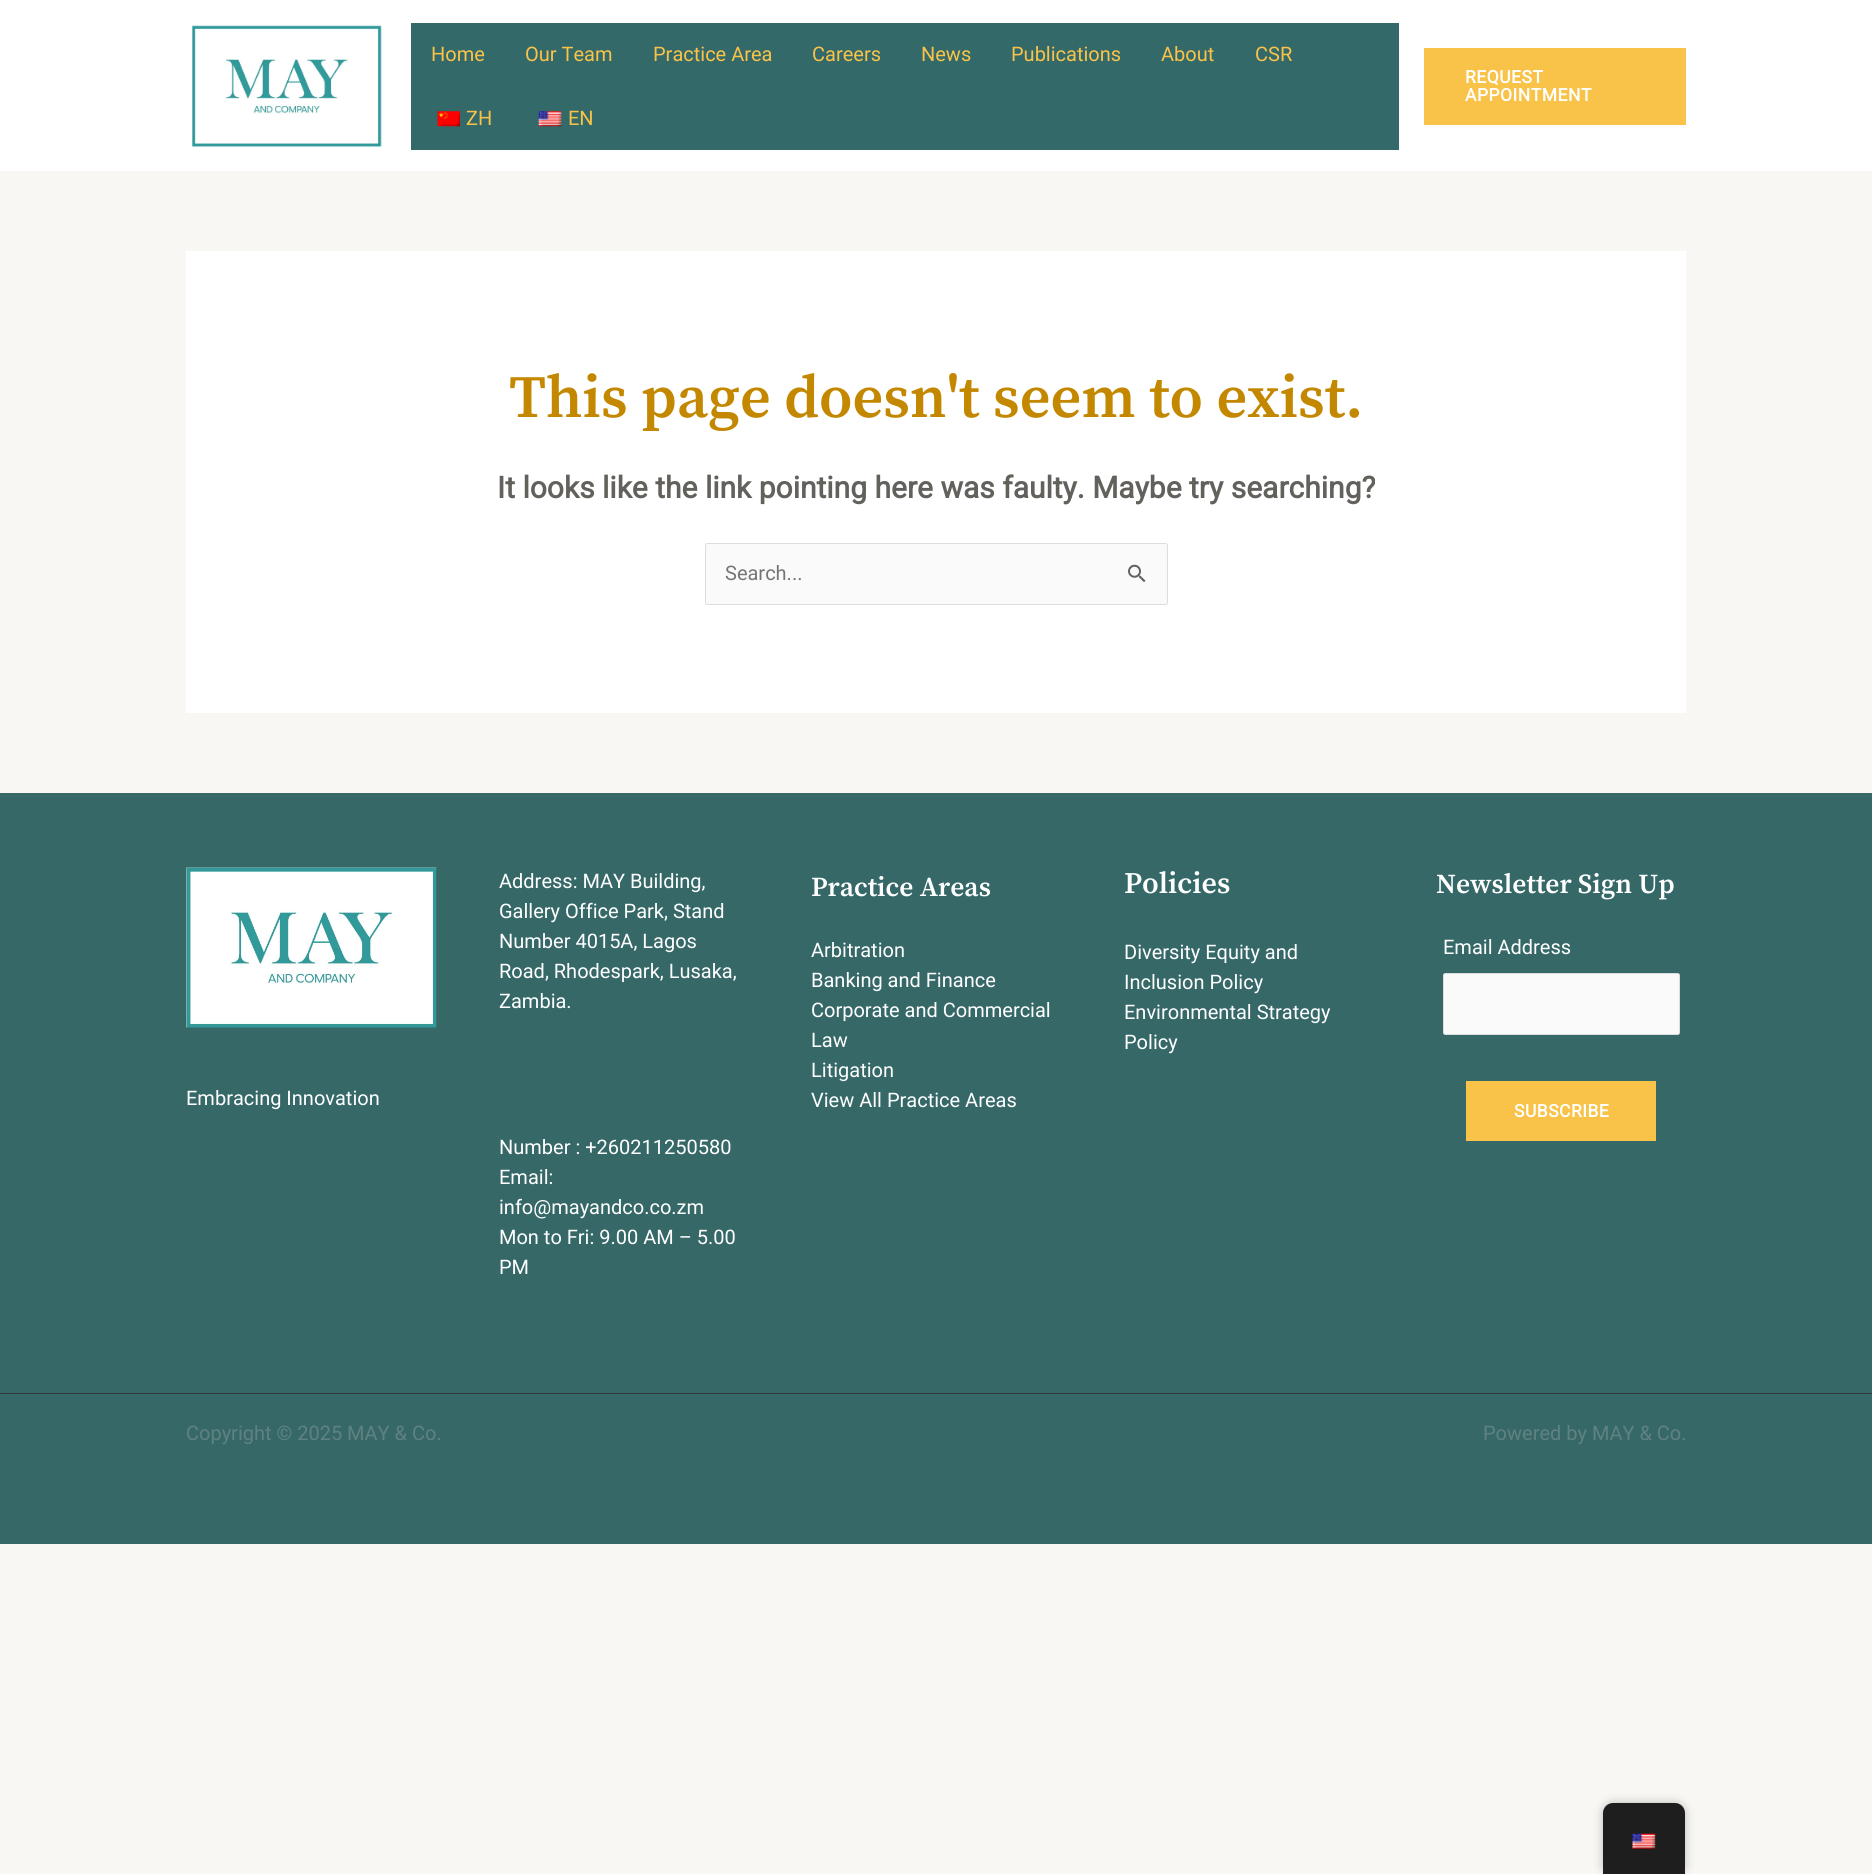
#include <cairo.h>
#include <math.h>
#include <stddef.h>


static void set_color(cairo_t *cr, unsigned color) {
    cairo_set_source_rgb(cr, (color >> 16) / 255.0, (color >> 8 & 255) / 255.0, (color & 255) / 255.0);
}

static void draw_text(cairo_t *cr, double x, double y, const char *s, const char *family, double size, int italic, int bold, unsigned color) {
    cairo_select_font_face(cr, family, italic ? CAIRO_FONT_SLANT_ITALIC : CAIRO_FONT_SLANT_NORMAL,
        bold ? CAIRO_FONT_WEIGHT_BOLD : CAIRO_FONT_WEIGHT_NORMAL);
    cairo_set_font_size(cr, size);
    set_color(cr, color);
    cairo_move_to(cr, x, y);
    cairo_show_text(cr, s);
}

static void draw_spaced(cairo_t *cr, double x, double y, const char *s, double letter, double word) {
    cairo_move_to(cr, x, y);
    while (*s) {
        char ch[5] = {0};
        int n = 0;
        do ch[n++] = *s++; while ((*s & 0xC0) == 0x80);
        cairo_show_text(cr, ch);
        cairo_rel_move_to(cr, letter + word * (*ch == ' '), 0);
    }
}

static void fill_rect(cairo_t *cr, double x, double y, double w, double h, unsigned color) {
    set_color(cr, color);
    cairo_rectangle(cr, x, y, w, h);
    cairo_fill(cr);
}

static void rounded_rect(cairo_t *cr, double x, double y, double w, double h, double r) {
    cairo_new_sub_path(cr);
    cairo_arc(cr, x + w - r, y + h - r, r, 0, M_PI / 2);
    cairo_arc(cr, x + r, y + h - r, r, M_PI / 2, M_PI);
    cairo_arc(cr, x + r, y + r, r, M_PI, 1.5 * M_PI);
    cairo_arc(cr, x + w - r, y + r, r, 1.5 * M_PI, 2 * M_PI);
    cairo_close_path(cr);
}

static void draw_shadow(cairo_t *cr, double x, double y, double w, double h, double r, double blur, double alpha) {
    cairo_push_group_with_content(cr, CAIRO_CONTENT_ALPHA);
    cairo_set_operator(cr, CAIRO_OPERATOR_SOURCE);
    for (int i = 15; i >= -15 && fmin(w, h) + blur * i / 3 > 0; i -= 2) {
        double e = blur * i / 6;
        cairo_set_source_rgba(cr, 0, 0, 0, alpha * erfc((i - 1) / 8.5) / 2);
        rounded_rect(cr, x - e, y - e, w + 2 * e, h + 2 * e, fmax(0, fmin(r + e + blur * .6, fmin(w, h) / 2 + e)));
        cairo_fill(cr);
    }
    cairo_pattern_t *soft = cairo_pop_group(cr);
    cairo_mask(cr, soft);
    cairo_pattern_destroy(soft);
}

static void draw_image(cairo_t *cr, const char *path, double x, double y, double w, double h) {
    cairo_surface_t *image = cairo_image_surface_create_from_png(path);
    cairo_save(cr);
    cairo_set_source_surface(cr, image, x, y);
    cairo_rectangle(cr, x, y, w, h);
    cairo_fill(cr);
    cairo_restore(cr);
    cairo_surface_destroy(image);
}

int main(void) {
    cairo_surface_t *surface = cairo_image_surface_create(CAIRO_FORMAT_RGB24, 1872, 1874);
    cairo_t *cr = cairo_create(surface);
    cairo_font_options_t *options = cairo_font_options_create();
    cairo_font_options_set_hint_metrics(options, CAIRO_HINT_METRICS_OFF);
    cairo_font_options_set_hint_style(options, CAIRO_HINT_STYLE_NONE);
    cairo_set_font_options(cr, options);
    cairo_set_miter_limit(cr, 4);
    set_color(cr, 0xF8F7F3);
    cairo_paint(cr);
    fill_rect(cr, 0, 0, 1872, 171, 0xFFFFFF);
    draw_image(cr, "assets/img1.png", 191, 24, 191, 124);
    fill_rect(cr, 411, 23, 988, 127, 0x346969);
    draw_text(cr, 431, 61, "Home", "Roboto", 20, 0, 0, 0xF9C349);
    draw_text(cr, 525, 61, "Our Team", "Roboto", 20, 0, 0, 0xF9C349);
    draw_text(cr, 653, 61, "Practice Area", "Roboto", 20, 0, 0, 0xF9C349);
    draw_text(cr, 812, 61, "Careers", "Roboto", 20, 0, 0, 0xF9C349);
    draw_text(cr, 921, 61, "News", "Roboto", 20, 0, 0, 0xF9C349);
    draw_text(cr, 1011, 61, "Publications", "Roboto", 20, 0, 0, 0xF9C349);
    draw_text(cr, 1161, 61, "About", "Roboto", 20, 0, 0, 0xF9C349);
    draw_text(cr, 1255, 61, "CSR", "Roboto", 20, 0, 0, 0xF9C349);
    draw_image(cr, "assets/img2.png", 437, 111, 23, 16);
    draw_text(cr, 466, 125, "ZH", "Roboto", 20, 0, 0, 0xF9C349);
    draw_image(cr, "assets/img3.png", 538, 111, 24, 16);
    draw_text(cr, 568, 125, "EN", "Roboto", 20, 0, 0, 0xF9C349);
    fill_rect(cr, 1424, 48, 262, 77, 0xF9C349);
    cairo_select_font_face(cr, "Roboto", CAIRO_FONT_SLANT_NORMAL, CAIRO_FONT_WEIGHT_BOLD);
    cairo_set_font_size(cr, 17.5);
    set_color(cr, 0xFFFFFF);
    draw_spaced(cr, 1465, 83, "REQUEST", 0.5, 0);
    draw_spaced(cr, 1465, 101, "APPOINTMENT", 0.5, 0);
    fill_rect(cr, 186, 251, 1500, 462, 0xFFFFFF);
    draw_text(cr, 509, 417, "This page doesn't seem to exist.", "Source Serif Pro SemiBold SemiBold", 60, 0, 0, 0xC38800);
    draw_text(cr, 497, 498, "It looks like the link pointing here was faulty. Maybe try searching?", "Roboto", 30, 0, 1, 0x62615C);
    set_color(cr, 0xFAFAFA);
    rounded_rect(cr, 705.5, 543.5, 462, 61, 2);
    cairo_fill_preserve(cr);
    set_color(cr, 0xDDDDDD);
    cairo_set_line_width(cr, 1);
    cairo_stroke(cr);
    draw_text(cr, 725, 580, "Search...", "Roboto", 20, 0, 0, 0x757575);
    draw_image(cr, "assets/img4.png", 1128, 564, 18, 19);
    fill_rect(cr, 0, 793, 1872, 600, 0x366868);
    draw_image(cr, "assets/img5.png", 186, 867, 251, 161);
    draw_text(cr, 186, 1105, "Embracing Innovation", "Roboto", 20, 0, 0, 0xFFFFFF);
    draw_text(cr, 499, 888, "Address: MAY Building,", "Roboto", 20, 0, 0, 0xFFFFFF);
    draw_text(cr, 499, 918, "Gallery Office Park, Stand", "Roboto", 20, 0, 0, 0xFFFFFF);
    draw_text(cr, 499, 948, "Number 4015A, Lagos", "Roboto", 20, 0, 0, 0xFFFFFF);
    draw_text(cr, 499, 978, "Road, Rhodespark, Lusaka,", "Roboto", 20, 0, 0, 0xFFFFFF);
    draw_text(cr, 499, 1008, "Zambia.", "Roboto", 20, 0, 0, 0xFFFFFF);
    draw_text(cr, 499, 1154, "Number : +260211250580", "Roboto", 20, 0, 0, 0xFFFFFF);
    draw_text(cr, 499, 1184, "Email:", "Roboto", 20, 0, 0, 0xFFFFFF);
    draw_text(cr, 499, 1214, "info@mayandco.co.zm", "Roboto", 20, 0, 0, 0xFFFFFF);
    draw_text(cr, 499, 1244, "Mon to Fri: 9.00 AM – 5.00", "Roboto", 20, 0, 0, 0xFFFFFF);
    draw_text(cr, 499, 1274, "PM", "Roboto", 20, 0, 0, 0xFFFFFF);
    draw_text(cr, 811, 896, "Practice Areas", "Source Serif Pro SemiBold SemiBold", 27.5, 0, 0, 0xFFFFFF);
    draw_text(cr, 811, 957, "Arbitration", "Roboto", 20, 0, 0, 0xFFFFFF);
    draw_text(cr, 811, 987, "Banking and Finance", "Roboto", 20, 0, 0, 0xFFFFFF);
    draw_text(cr, 811, 1017, "Corporate and Commercial", "Roboto", 20, 0, 0, 0xFFFFFF);
    draw_text(cr, 811, 1047, "Law", "Roboto", 20, 0, 0, 0xFFFFFF);
    draw_text(cr, 811, 1077, "Litigation", "Roboto", 20, 0, 0, 0xFFFFFF);
    draw_text(cr, 811, 1107, "View All Practice Areas", "Roboto", 20, 0, 0, 0xFFFFFF);
    draw_text(cr, 1124, 893, "Policies", "Source Serif Pro SemiBold SemiBold", 30, 0, 0, 0xFFFFFF);
    draw_text(cr, 1124, 959, "Diversity Equity and", "Roboto", 20, 0, 0, 0xFFFFFF);
    draw_text(cr, 1124, 989, "Inclusion Policy", "Roboto", 20, 0, 0, 0xFFFFFF);
    draw_text(cr, 1124, 1019, "Environmental Strategy", "Roboto", 20, 0, 0, 0xFFFFFF);
    draw_text(cr, 1124, 1049, "Policy", "Roboto", 20, 0, 0, 0xFFFFFF);
    draw_text(cr, 1436, 893, "Newsletter Sign Up", "Source Serif Pro SemiBold SemiBold", 27.5, 0, 0, 0xFFFFFF);
    draw_text(cr, 1443, 954, "Email Address", "Roboto", 20, 0, 0, 0xFFFFFF);
    set_color(cr, 0xFAFAFA);
    rounded_rect(cr, 1443.5, 973.5, 236, 61, 2);
    cairo_fill_preserve(cr);
    set_color(cr, 0xDDDDDD);
    cairo_stroke(cr);
    fill_rect(cr, 1466, 1081, 190, 60, 0xF9C349);
    cairo_select_font_face(cr, "Roboto", CAIRO_FONT_SLANT_NORMAL, CAIRO_FONT_WEIGHT_BOLD);
    cairo_set_font_size(cr, 17.5);
    set_color(cr, 0xFFFFFF);
    draw_spaced(cr, 1514, 1117, "SUBSCRIBE", 0.5, 0);
    fill_rect(cr, 0, 1394, 1872, 150, 0x366868);
    fill_rect(cr, 0, 1393, 1872, 1, 0x33373B);
    draw_text(cr, 186, 1440, "Copyright © 2025 MAY & Co.", "Roboto", 20, 0, 0, 0x5F8181);
    draw_text(cr, 1483, 1440, "Powered by MAY & Co.", "Roboto", 20, 0, 0, 0x5F8181);
    set_color(cr, 0x000000);
    draw_shadow(cr, 1603, 1803, 82, 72, 10, 5, 0.25);
    set_color(cr, 0x1E1E1E);
    cairo_new_path(cr);
    cairo_move_to(cr, 1613, 1803);
    cairo_line_to(cr, 1675, 1803);
    cairo_curve_to(cr, 1680.5, 1803, 1685, 1807.5, 1685, 1813);
    cairo_line_to(cr, 1685, 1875);
    cairo_line_to(cr, 1603, 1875);
    cairo_line_to(cr, 1603, 1813);
    cairo_curve_to(cr, 1603, 1807.5, 1607.5, 1803, 1613, 1803);
    cairo_close_path(cr);
    cairo_fill(cr);
    draw_image(cr, "assets/img6.png", 1632, 1833, 24, 16);
    cairo_surface_write_to_png(surface, "output.png");
    cairo_font_options_destroy(options);
    cairo_destroy(cr);
    cairo_surface_destroy(surface);
    return 0;
}
